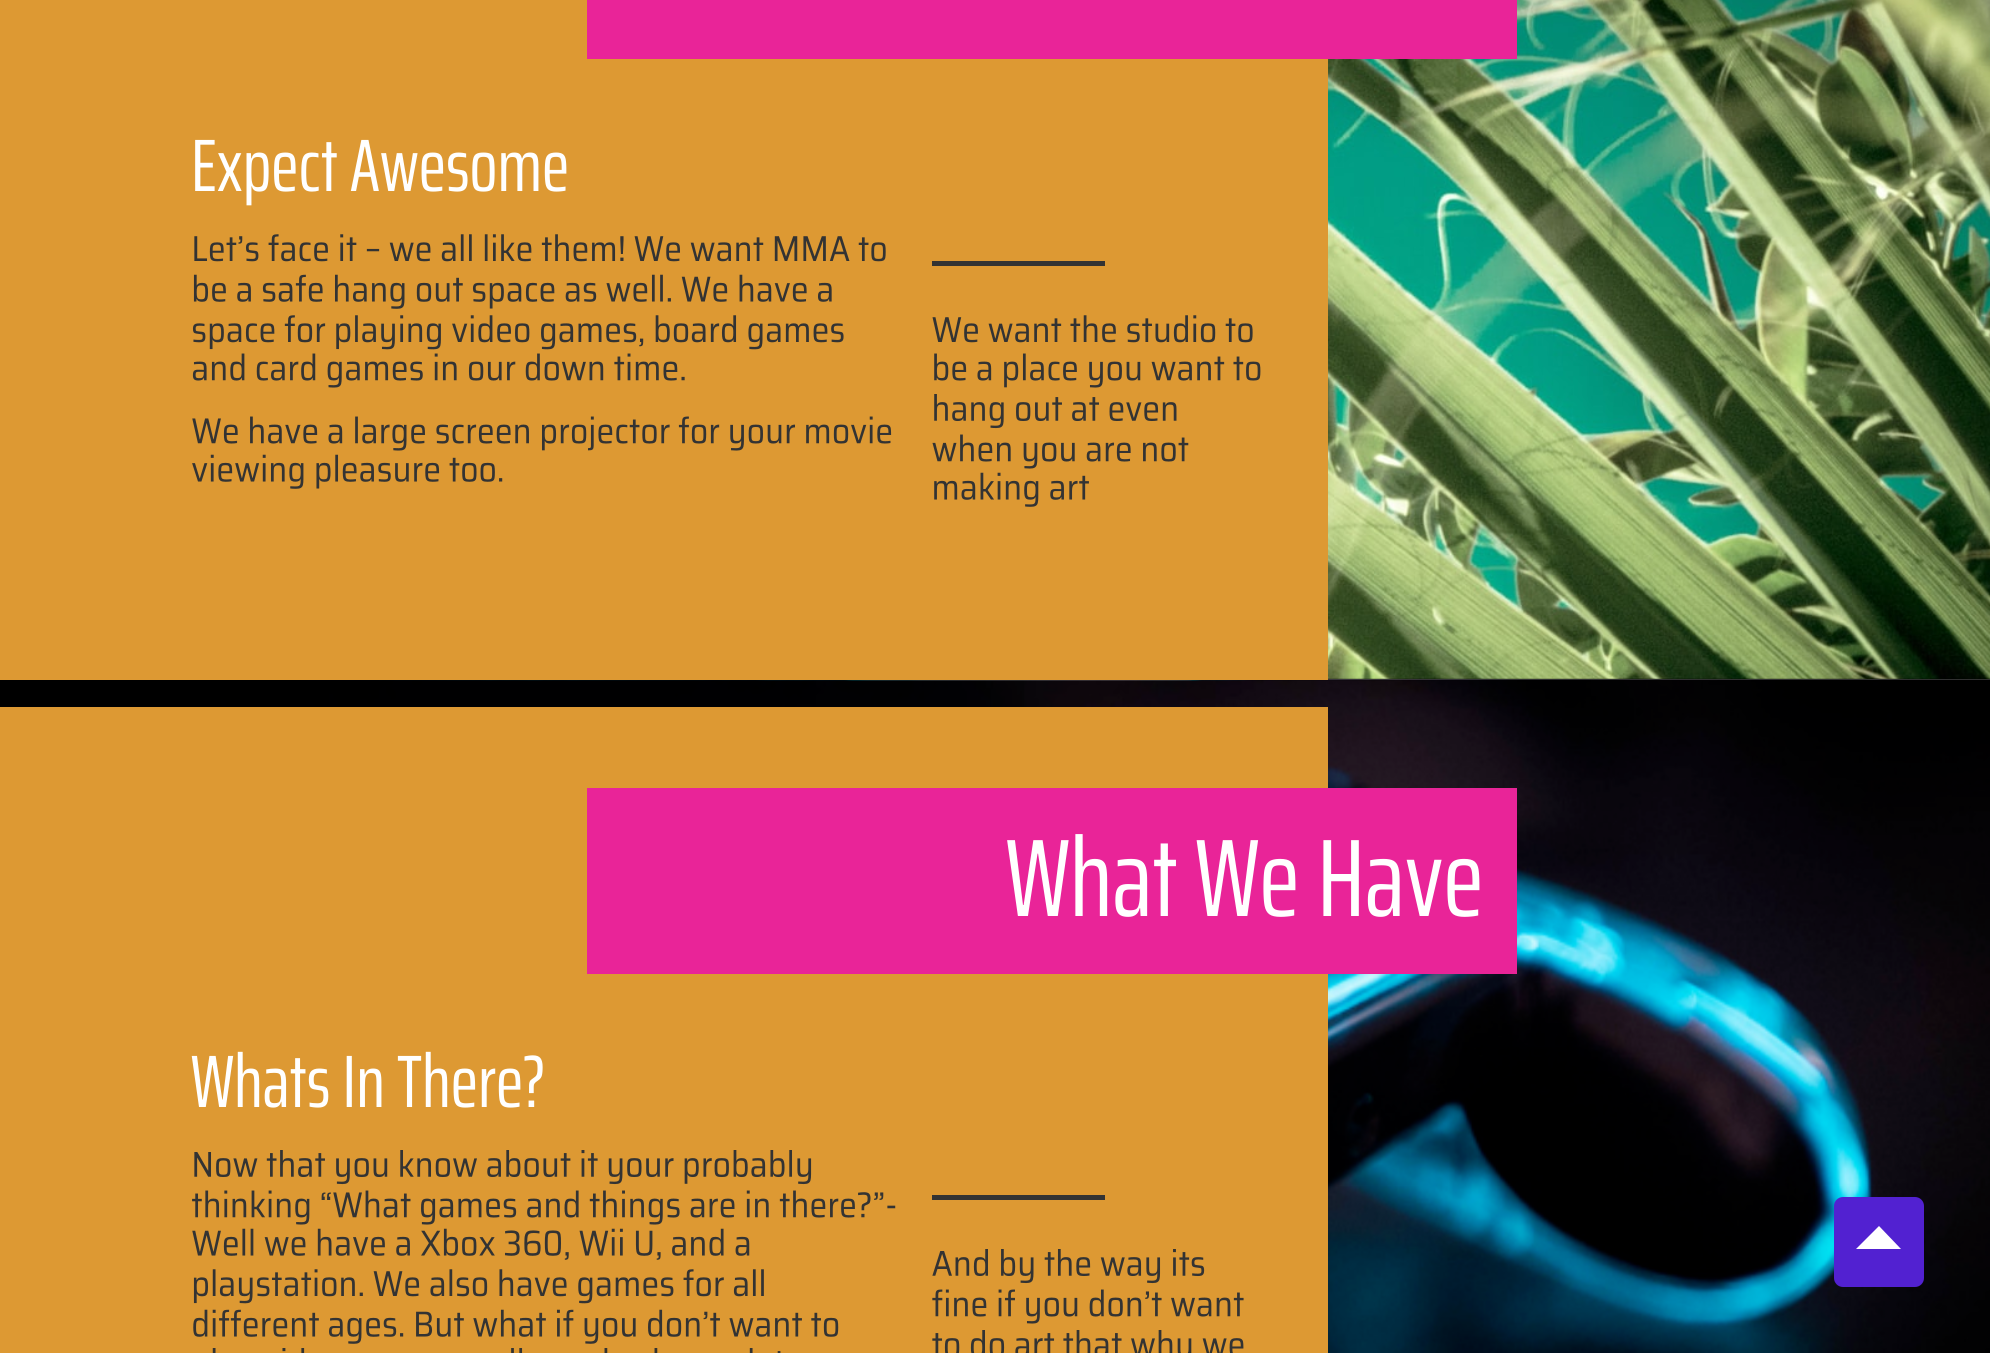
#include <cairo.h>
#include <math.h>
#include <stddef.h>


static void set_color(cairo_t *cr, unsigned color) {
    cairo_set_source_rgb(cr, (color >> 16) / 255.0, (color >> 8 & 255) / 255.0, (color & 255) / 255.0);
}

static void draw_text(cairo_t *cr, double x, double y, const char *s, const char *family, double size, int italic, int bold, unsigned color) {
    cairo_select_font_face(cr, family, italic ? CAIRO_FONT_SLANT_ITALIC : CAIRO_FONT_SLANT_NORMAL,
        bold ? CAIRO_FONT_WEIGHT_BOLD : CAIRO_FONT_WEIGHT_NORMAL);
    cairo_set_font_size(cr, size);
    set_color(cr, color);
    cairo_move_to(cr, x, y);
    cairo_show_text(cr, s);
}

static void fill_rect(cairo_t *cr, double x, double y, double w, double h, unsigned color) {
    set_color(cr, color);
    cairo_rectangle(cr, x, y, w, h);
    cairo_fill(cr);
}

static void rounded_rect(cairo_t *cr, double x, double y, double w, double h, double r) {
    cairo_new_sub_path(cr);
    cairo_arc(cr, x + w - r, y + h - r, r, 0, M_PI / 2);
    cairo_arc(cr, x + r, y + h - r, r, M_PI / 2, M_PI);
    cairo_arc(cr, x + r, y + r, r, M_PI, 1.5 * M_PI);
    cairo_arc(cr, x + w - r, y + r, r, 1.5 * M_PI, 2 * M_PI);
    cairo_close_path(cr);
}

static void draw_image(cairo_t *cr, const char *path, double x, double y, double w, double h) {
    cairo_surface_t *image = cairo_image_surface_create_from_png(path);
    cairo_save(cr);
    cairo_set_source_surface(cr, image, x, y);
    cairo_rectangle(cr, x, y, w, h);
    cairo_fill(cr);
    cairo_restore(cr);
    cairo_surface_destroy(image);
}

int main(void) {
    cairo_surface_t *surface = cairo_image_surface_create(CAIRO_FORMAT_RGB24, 1990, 1353);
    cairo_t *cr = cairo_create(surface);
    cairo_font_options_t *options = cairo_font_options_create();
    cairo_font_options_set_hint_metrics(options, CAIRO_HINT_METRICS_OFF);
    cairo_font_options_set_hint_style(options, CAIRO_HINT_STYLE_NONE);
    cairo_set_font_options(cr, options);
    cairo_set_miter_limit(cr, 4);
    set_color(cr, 0xFFFFFF);
    cairo_paint(cr);
    draw_image(cr, "assets/img1.png", 1328, 0, 662, 679);
    draw_image(cr, "assets/img13.png", 0, 678, 1990, 675);
    fill_rect(cr, 0, 0, 1328, 680, 0xDD9933);
    fill_rect(cr, 587, 0, 930, 59, 0xE92498);
    draw_text(cr, 191, 191, "Expect Awesome", "Saira ExtraCondensed", 74.25, 0, 0, 0xFFFFFF);
    draw_image(cr, "assets/img2.png", 194, 234, 692, 28);
    draw_image(cr, "assets/img3.png", 193, 274, 639, 35);
    draw_image(cr, "assets/img4.png", 192, 315, 652, 35);
    draw_image(cr, "assets/img5.png", 192, 353, 493, 35);
    draw_image(cr, "assets/img6.png", 192, 416, 700, 35);
    draw_image(cr, "assets/img7.png", 192, 454, 311, 35);
    fill_rect(cr, 932, 261, 173, 5, 0x333333);
    draw_image(cr, "assets/img8.png", 932, 315, 321, 28);
    draw_image(cr, "assets/img9.png", 934, 353, 327, 35);
    draw_image(cr, "assets/img10.png", 934, 394, 243, 35);
    draw_image(cr, "assets/img11.png", 932, 434, 257, 35);
    draw_image(cr, "assets/img12.png", 934, 472, 155, 35);
    fill_rect(cr, 0, 707, 1328, 646, 0xDD9933);
    fill_rect(cr, 587, 788, 930, 186, 0xE92498);
    draw_text(cr, 1006, 916, "What We Have", "Saira ExtraCondensed", 110.25, 0, 0, 0xFFFFFF);
    draw_text(cr, 191, 1107, "Whats In There?", "Saira ExtraCondensed", 74.25, 0, 0, 0xFFFFFF);
    draw_image(cr, "assets/img14.png", 194, 1150, 618, 35);
    draw_image(cr, "assets/img15.png", 192, 1190, 704, 35);
    draw_image(cr, "assets/img16.png", 192, 1228, 558, 32);
    draw_image(cr, "assets/img17.png", 193, 1269, 571, 35);
    draw_image(cr, "assets/img18.png", 193, 1309, 646, 35);
    draw_image(cr, "assets/img19.png", 212, 1348, 569, 5);
    fill_rect(cr, 932, 1195, 173, 5, 0x333333);
    draw_image(cr, "assets/img20.png", 932, 1249, 273, 35);
    draw_image(cr, "assets/img21.png", 932, 1289, 312, 35);
    draw_image(cr, "assets/img22.png", 932, 1330, 312, 23);
    set_color(cr, 0x5221D1);
    rounded_rect(cr, 1834, 1197, 90, 90, 9);
    cairo_fill(cr);
    set_color(cr, 0xFFFFFF);
    cairo_new_path(cr);
    cairo_move_to(cr, 1901, 1249);
    cairo_line_to(cr, 1856, 1249);
    cairo_line_to(cr, 1879, 1226);
    cairo_close_path(cr);
    cairo_fill(cr);
    cairo_surface_write_to_png(surface, "output.png");
    cairo_font_options_destroy(options);
    cairo_destroy(cr);
    cairo_surface_destroy(surface);
    return 0;
}
